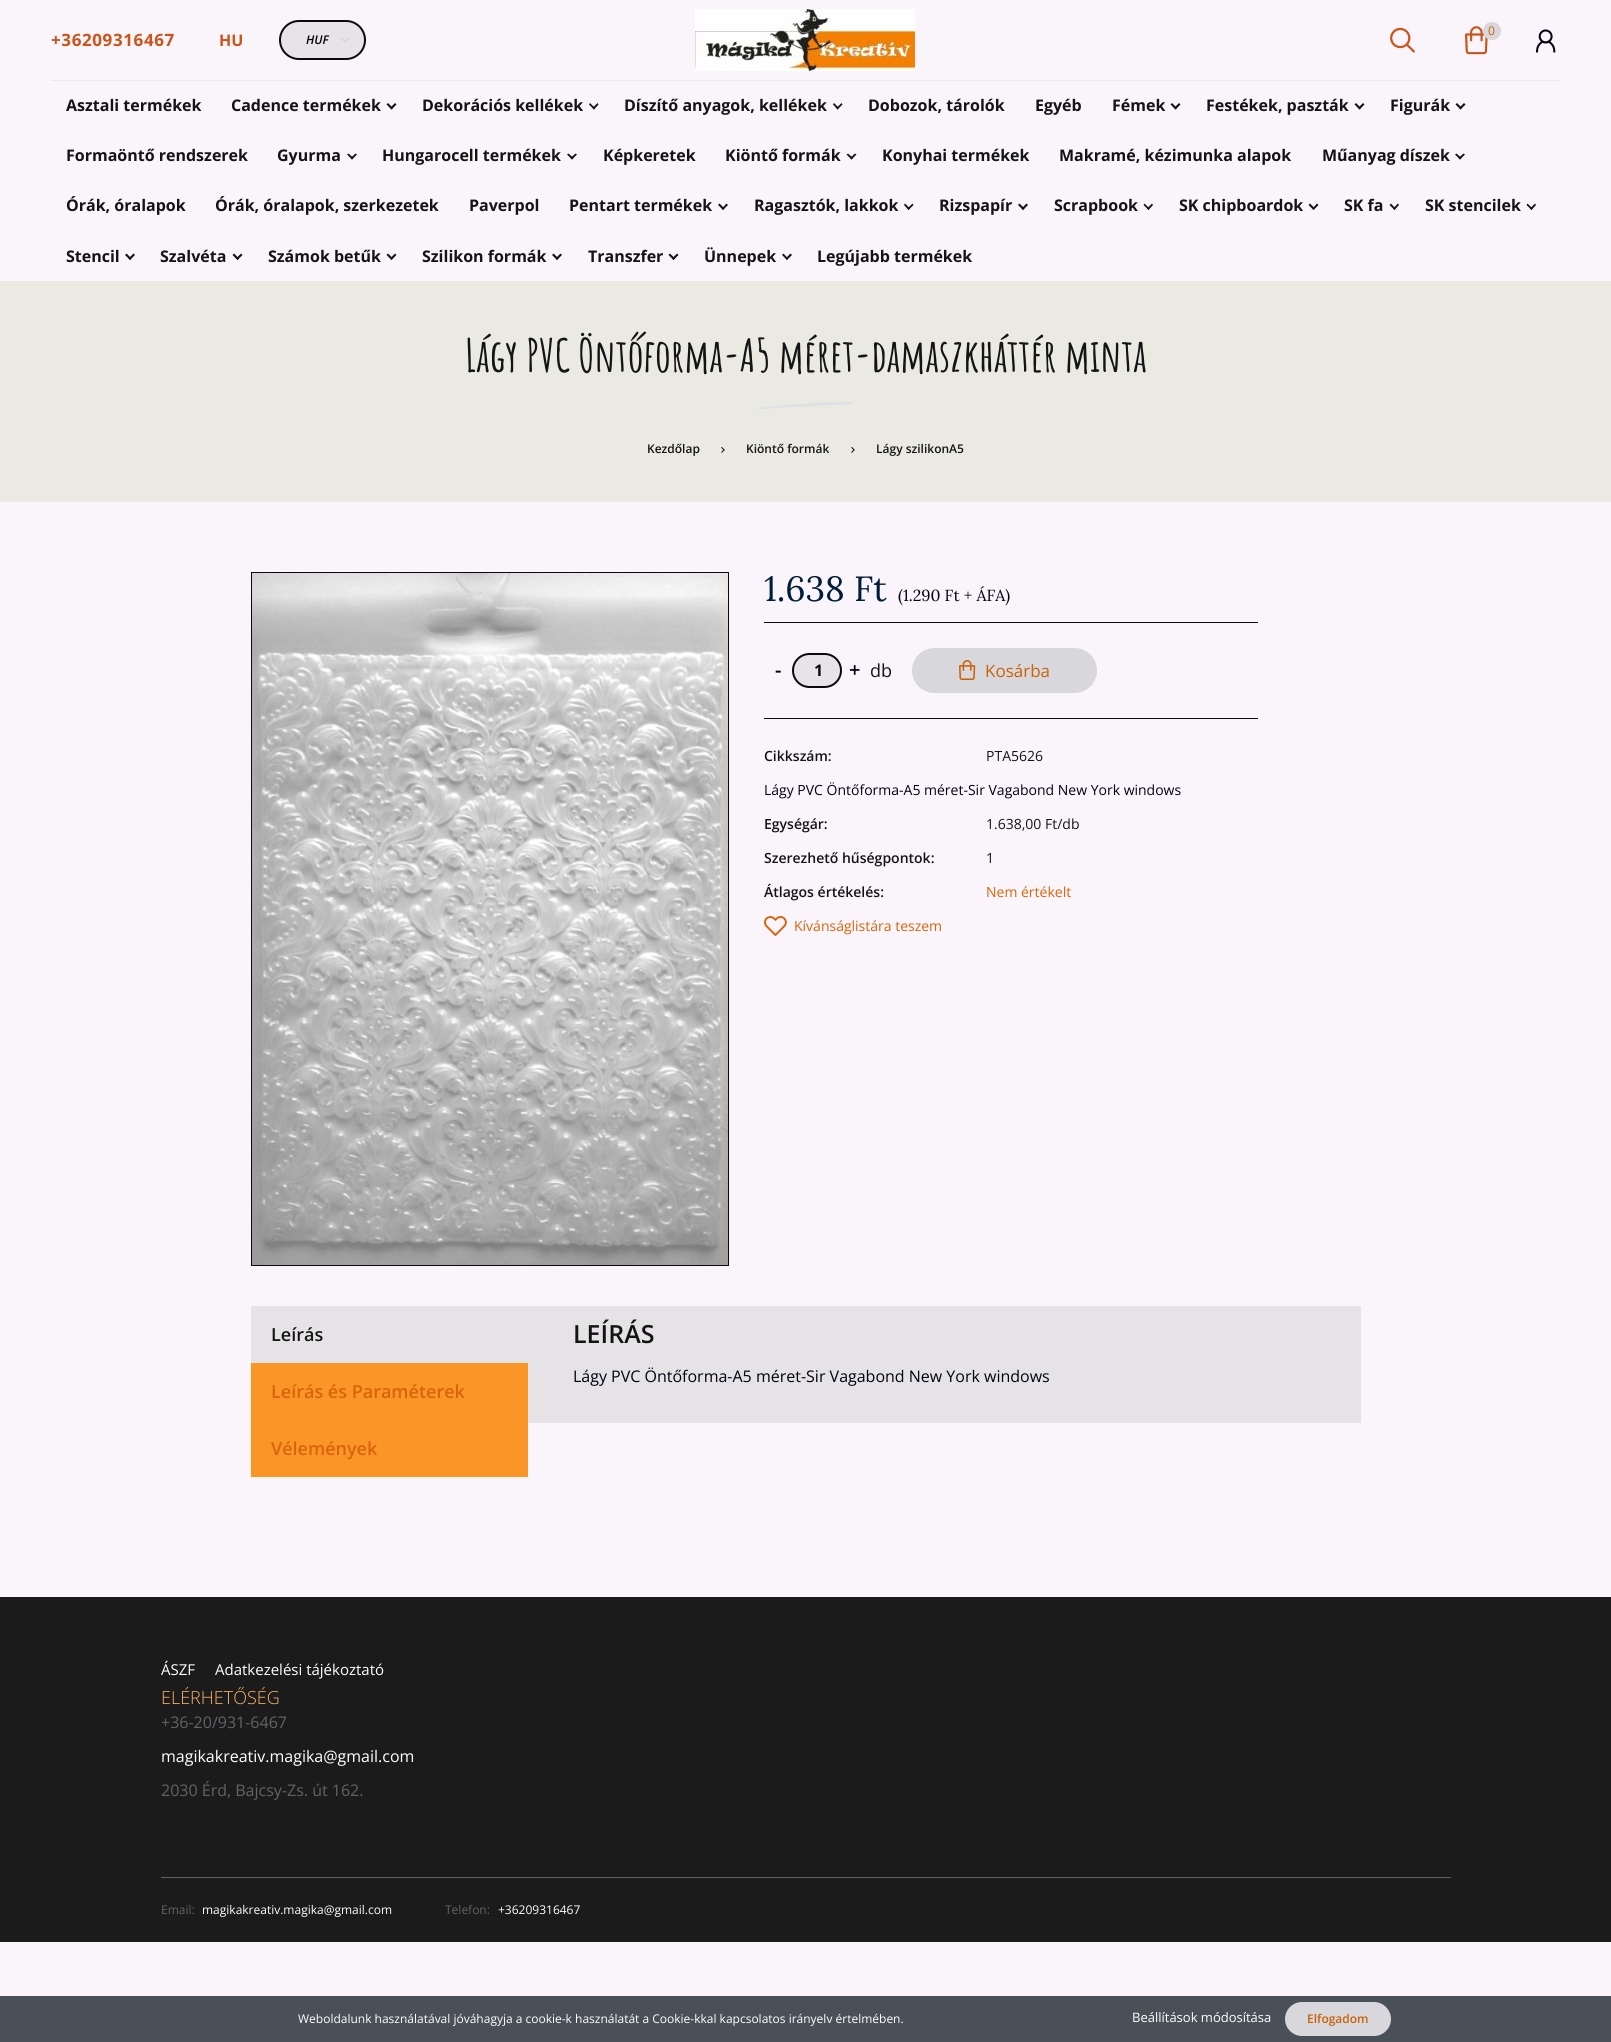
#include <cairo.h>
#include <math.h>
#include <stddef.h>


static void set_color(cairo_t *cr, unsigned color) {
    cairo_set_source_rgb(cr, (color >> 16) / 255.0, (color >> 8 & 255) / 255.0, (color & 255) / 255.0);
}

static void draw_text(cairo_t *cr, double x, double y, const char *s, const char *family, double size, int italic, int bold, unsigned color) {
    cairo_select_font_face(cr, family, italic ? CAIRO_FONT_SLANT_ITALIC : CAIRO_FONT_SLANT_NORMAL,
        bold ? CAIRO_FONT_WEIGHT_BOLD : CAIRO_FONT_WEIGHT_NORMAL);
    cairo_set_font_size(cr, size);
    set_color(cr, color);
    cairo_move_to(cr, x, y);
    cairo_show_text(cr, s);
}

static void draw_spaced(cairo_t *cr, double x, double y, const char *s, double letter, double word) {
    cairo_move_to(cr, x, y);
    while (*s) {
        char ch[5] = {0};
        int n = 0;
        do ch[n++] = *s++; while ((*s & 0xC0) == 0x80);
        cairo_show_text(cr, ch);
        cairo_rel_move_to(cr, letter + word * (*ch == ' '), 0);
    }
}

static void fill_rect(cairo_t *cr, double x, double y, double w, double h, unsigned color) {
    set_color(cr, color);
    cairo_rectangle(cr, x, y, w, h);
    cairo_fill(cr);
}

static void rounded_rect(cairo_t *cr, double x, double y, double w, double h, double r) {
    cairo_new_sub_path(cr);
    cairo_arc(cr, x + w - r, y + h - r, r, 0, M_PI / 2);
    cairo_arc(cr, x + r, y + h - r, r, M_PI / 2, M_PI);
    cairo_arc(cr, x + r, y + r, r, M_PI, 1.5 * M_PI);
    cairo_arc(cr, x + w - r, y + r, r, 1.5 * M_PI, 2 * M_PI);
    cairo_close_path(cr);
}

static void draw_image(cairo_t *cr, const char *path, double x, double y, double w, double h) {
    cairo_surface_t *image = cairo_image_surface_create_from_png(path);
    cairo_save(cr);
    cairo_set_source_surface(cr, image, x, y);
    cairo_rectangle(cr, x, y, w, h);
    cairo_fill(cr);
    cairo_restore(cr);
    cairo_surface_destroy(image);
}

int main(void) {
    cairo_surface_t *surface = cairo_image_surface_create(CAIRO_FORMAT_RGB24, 1611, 2042);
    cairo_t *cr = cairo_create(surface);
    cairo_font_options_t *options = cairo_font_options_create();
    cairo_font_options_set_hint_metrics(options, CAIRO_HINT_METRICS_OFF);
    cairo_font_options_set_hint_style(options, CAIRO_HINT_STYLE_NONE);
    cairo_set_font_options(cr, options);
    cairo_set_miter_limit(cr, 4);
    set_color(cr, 0xFAF5FA);
    cairo_paint(cr);
    fill_rect(cr, 51, 80, 1510, 1, 0xE9EBF0);
    draw_image(cr, "assets/img1.png", 695, 9, 220, 62);
    draw_image(cr, "assets/img2.png", 1390, 27, 25, 26);
    draw_image(cr, "assets/img3.png", 1465, 26, 23, 29);
    set_color(cr, 0xD8D7DB);
    cairo_arc(cr, 1492, 31, 9, 0, 2 * M_PI);
    cairo_fill(cr);
    draw_text(cr, 1488, 35, "0", "Open Sans", 12, 0, 0, 0xC96106);
    draw_image(cr, "assets/img4.png", 1536, 29, 20, 24);
    cairo_select_font_face(cr, "Open Sans", CAIRO_FONT_SLANT_NORMAL, CAIRO_FONT_WEIGHT_BOLD);
    cairo_set_font_size(cr, 17);
    set_color(cr, 0xCC531A);
    draw_spaced(cr, 51, 46, "+36209316467", 0.6, 0);
    draw_text(cr, 219, 46, "HU", "Open Sans", 16, 0, 1, 0xCC531A);
    set_color(cr, 0xE8E3E8);
    rounded_rect(cr, 281, 22, 83, 36, 18);
    cairo_fill(cr);
    draw_image(cr, "assets/img5.png", 341, 37, 8, 5);
    rounded_rect(cr, 280, 21, 85, 38, 19);
    set_color(cr, 0x0A0A09);
    cairo_stroke(cr);
    draw_text(cr, 306, 44, "HUF", "Open Sans SemiBold", 12, 1, 0, 0x030303);
    draw_text(cr, 66, 111, "Asztali termékek", "Open Sans", 16, 0, 1, 0x141414);
    draw_text(cr, 231, 111, "Cadence termékek", "Open Sans", 16, 0, 1, 0x141414);
    cairo_new_path(cr);
    cairo_move_to(cr, 395, 103);
    cairo_line_to(cr, 396.5, 104.5);
    cairo_line_to(cr, 391.5, 109.5);
    cairo_line_to(cr, 390, 108);
    cairo_close_path(cr);
    cairo_fill(cr);
    cairo_new_path(cr);
    cairo_move_to(cr, 388, 103);
    cairo_line_to(cr, 393, 108);
    cairo_line_to(cr, 391.5, 109.5);
    cairo_line_to(cr, 386.5, 104.5);
    cairo_close_path(cr);
    cairo_fill(cr);
    draw_text(cr, 422, 111, "Dekorációs kellékek", "Open Sans", 16, 0, 1, 0x141414);
    cairo_new_path(cr);
    cairo_move_to(cr, 597.5, 103);
    cairo_line_to(cr, 598.5, 104.5);
    cairo_line_to(cr, 594, 109.5);
    cairo_line_to(cr, 592.5, 108);
    cairo_close_path(cr);
    cairo_fill(cr);
    cairo_new_path(cr);
    cairo_move_to(cr, 590, 103);
    cairo_line_to(cr, 595, 108);
    cairo_line_to(cr, 594, 109.5);
    cairo_line_to(cr, 589, 104.5);
    cairo_close_path(cr);
    cairo_fill(cr);
    draw_text(cr, 624, 111, "Díszítő anyagok, kellékek", "Open Sans", 16, 0, 1, 0x141414);
    cairo_new_path(cr);
    cairo_move_to(cr, 841.5, 103);
    cairo_line_to(cr, 842.5, 104.5);
    cairo_line_to(cr, 837.5, 109.5);
    cairo_line_to(cr, 836.5, 108);
    cairo_close_path(cr);
    cairo_fill(cr);
    cairo_new_path(cr);
    cairo_move_to(cr, 834, 103);
    cairo_line_to(cr, 839, 108);
    cairo_line_to(cr, 837.5, 109.5);
    cairo_line_to(cr, 833, 104.5);
    cairo_close_path(cr);
    cairo_fill(cr);
    draw_text(cr, 868, 111, "Dobozok, tárolók", "Open Sans", 16, 0, 1, 0x141414);
    draw_text(cr, 1035, 111, "Egyéb", "Open Sans", 16, 0, 1, 0x141414);
    draw_text(cr, 1112, 111, "Fémek", "Open Sans", 16, 0, 1, 0x141414);
    cairo_new_path(cr);
    cairo_move_to(cr, 1179, 103);
    cairo_line_to(cr, 1180.5, 104.5);
    cairo_line_to(cr, 1175.5, 109.5);
    cairo_line_to(cr, 1174, 108);
    cairo_close_path(cr);
    cairo_fill(cr);
    cairo_new_path(cr);
    cairo_move_to(cr, 1172, 103);
    cairo_line_to(cr, 1177, 108);
    cairo_line_to(cr, 1175.5, 109.5);
    cairo_line_to(cr, 1170.5, 104.5);
    cairo_close_path(cr);
    cairo_fill(cr);
    draw_text(cr, 1206, 111, "Festékek, paszták", "Open Sans", 16, 0, 1, 0x141414);
    cairo_new_path(cr);
    cairo_move_to(cr, 1363, 103);
    cairo_line_to(cr, 1364.5, 104.5);
    cairo_line_to(cr, 1359.5, 109.5);
    cairo_line_to(cr, 1358, 108);
    cairo_close_path(cr);
    cairo_fill(cr);
    cairo_new_path(cr);
    cairo_move_to(cr, 1356, 103);
    cairo_line_to(cr, 1361, 108);
    cairo_line_to(cr, 1359.5, 109.5);
    cairo_line_to(cr, 1354.5, 104.5);
    cairo_close_path(cr);
    cairo_fill(cr);
    draw_text(cr, 1390, 111, "Figurák", "Open Sans", 16, 0, 1, 0x141414);
    cairo_new_path(cr);
    cairo_move_to(cr, 1464, 103);
    cairo_line_to(cr, 1465.5, 104.5);
    cairo_line_to(cr, 1460.5, 109.5);
    cairo_line_to(cr, 1459, 108);
    cairo_close_path(cr);
    cairo_fill(cr);
    cairo_new_path(cr);
    cairo_move_to(cr, 1457, 103);
    cairo_line_to(cr, 1462, 108);
    cairo_line_to(cr, 1460.5, 109.5);
    cairo_line_to(cr, 1455.5, 104.5);
    cairo_close_path(cr);
    cairo_fill(cr);
    draw_text(cr, 66, 161, "Formaöntő rendszerek", "Open Sans", 16, 0, 1, 0x141414);
    draw_text(cr, 277, 161, "Gyurma", "Open Sans", 16, 0, 1, 0x141414);
    cairo_new_path(cr);
    cairo_move_to(cr, 355.5, 153.5);
    cairo_line_to(cr, 357, 154.5);
    cairo_line_to(cr, 352, 159.5);
    cairo_line_to(cr, 350.5, 158);
    cairo_close_path(cr);
    cairo_fill(cr);
    cairo_new_path(cr);
    cairo_move_to(cr, 348.5, 153.5);
    cairo_line_to(cr, 353.5, 158);
    cairo_line_to(cr, 352, 159.5);
    cairo_line_to(cr, 347, 154.5);
    cairo_close_path(cr);
    cairo_fill(cr);
    draw_text(cr, 382, 161, "Hungarocell termékek", "Open Sans", 16, 0, 1, 0x141414);
    cairo_new_path(cr);
    cairo_move_to(cr, 575.5, 153.5);
    cairo_line_to(cr, 577, 154.5);
    cairo_line_to(cr, 572, 159.5);
    cairo_line_to(cr, 570.5, 158);
    cairo_close_path(cr);
    cairo_fill(cr);
    cairo_new_path(cr);
    cairo_move_to(cr, 568.5, 153.5);
    cairo_line_to(cr, 573.5, 158);
    cairo_line_to(cr, 572, 159.5);
    cairo_line_to(cr, 567, 154.5);
    cairo_close_path(cr);
    cairo_fill(cr);
    draw_text(cr, 603, 161, "Képkeretek", "Open Sans", 16, 0, 1, 0x141414);
    draw_text(cr, 725, 161, "Kiöntő formák", "Open Sans", 16, 0, 1, 0x141414);
    cairo_new_path(cr);
    cairo_move_to(cr, 855, 153.5);
    cairo_line_to(cr, 856.5, 154.5);
    cairo_line_to(cr, 851.5, 159.5);
    cairo_line_to(cr, 850, 158);
    cairo_close_path(cr);
    cairo_fill(cr);
    cairo_new_path(cr);
    cairo_move_to(cr, 848, 153.5);
    cairo_line_to(cr, 853, 158);
    cairo_line_to(cr, 851.5, 159.5);
    cairo_line_to(cr, 846.5, 154.5);
    cairo_close_path(cr);
    cairo_fill(cr);
    draw_text(cr, 882, 161, "Konyhai termékek", "Open Sans", 16, 0, 1, 0x141414);
    draw_text(cr, 1059, 161, "Makramé, kézimunka alapok", "Open Sans", 16, 0, 1, 0x141414);
    draw_text(cr, 1322, 161, "Műanyag díszek", "Open Sans", 16, 0, 1, 0x141414);
    cairo_new_path(cr);
    cairo_move_to(cr, 1463.5, 153.5);
    cairo_line_to(cr, 1465, 154.5);
    cairo_line_to(cr, 1460, 159.5);
    cairo_line_to(cr, 1458.5, 158);
    cairo_close_path(cr);
    cairo_fill(cr);
    cairo_new_path(cr);
    cairo_move_to(cr, 1456.5, 153.5);
    cairo_line_to(cr, 1461.5, 158);
    cairo_line_to(cr, 1460, 159.5);
    cairo_line_to(cr, 1455, 154.5);
    cairo_close_path(cr);
    cairo_fill(cr);
    draw_text(cr, 66, 211, "Órák, óralapok", "Open Sans", 16, 0, 1, 0x141414);
    draw_text(cr, 215, 211, "Órák, óralapok, szerkezetek", "Open Sans", 16, 0, 1, 0x141414);
    draw_text(cr, 469, 211, "Paverpol", "Open Sans", 16, 0, 1, 0x141414);
    draw_text(cr, 569, 211, "Pentart termékek", "Open Sans", 16, 0, 1, 0x141414);
    cairo_new_path(cr);
    cairo_move_to(cr, 726.5, 203.5);
    cairo_line_to(cr, 728, 205);
    cairo_line_to(cr, 723, 210);
    cairo_line_to(cr, 722, 208.5);
    cairo_close_path(cr);
    cairo_fill(cr);
    cairo_new_path(cr);
    cairo_move_to(cr, 719.5, 203.5);
    cairo_line_to(cr, 724.5, 208.5);
    cairo_line_to(cr, 723, 210);
    cairo_line_to(cr, 718, 205);
    cairo_close_path(cr);
    cairo_fill(cr);
    draw_text(cr, 754, 211, "Ragasztók, lakkok", "Open Sans", 16, 0, 1, 0x141414);
    cairo_new_path(cr);
    cairo_move_to(cr, 912.5, 203.5);
    cairo_line_to(cr, 913.5, 205);
    cairo_line_to(cr, 908.5, 210);
    cairo_line_to(cr, 907.5, 208.5);
    cairo_close_path(cr);
    cairo_fill(cr);
    cairo_new_path(cr);
    cairo_move_to(cr, 905, 203.5);
    cairo_line_to(cr, 910, 208.5);
    cairo_line_to(cr, 908.5, 210);
    cairo_line_to(cr, 904, 205);
    cairo_close_path(cr);
    cairo_fill(cr);
    draw_text(cr, 939, 211, "Rizspapír", "Open Sans", 16, 0, 1, 0x141414);
    cairo_new_path(cr);
    cairo_move_to(cr, 1026.5, 203.5);
    cairo_line_to(cr, 1028, 205);
    cairo_line_to(cr, 1023, 210);
    cairo_line_to(cr, 1021.5, 208.5);
    cairo_close_path(cr);
    cairo_fill(cr);
    cairo_new_path(cr);
    cairo_move_to(cr, 1019.5, 203.5);
    cairo_line_to(cr, 1024.5, 208.5);
    cairo_line_to(cr, 1023, 210);
    cairo_line_to(cr, 1018, 205);
    cairo_close_path(cr);
    cairo_fill(cr);
    draw_text(cr, 1054, 211, "Scrapbook", "Open Sans", 16, 0, 1, 0x141414);
    cairo_new_path(cr);
    cairo_move_to(cr, 1152, 203.5);
    cairo_line_to(cr, 1153, 205);
    cairo_line_to(cr, 1148.5, 210);
    cairo_line_to(cr, 1147, 208.5);
    cairo_close_path(cr);
    cairo_fill(cr);
    cairo_new_path(cr);
    cairo_move_to(cr, 1144.5, 203.5);
    cairo_line_to(cr, 1149.5, 208.5);
    cairo_line_to(cr, 1148.5, 210);
    cairo_line_to(cr, 1143.5, 205);
    cairo_close_path(cr);
    cairo_fill(cr);
    draw_text(cr, 1179, 211, "SK chipboardok", "Open Sans", 16, 0, 1, 0x141414);
    cairo_new_path(cr);
    cairo_move_to(cr, 1317, 203.5);
    cairo_line_to(cr, 1318.5, 205);
    cairo_line_to(cr, 1313.5, 210);
    cairo_line_to(cr, 1312.5, 208.5);
    cairo_close_path(cr);
    cairo_fill(cr);
    cairo_new_path(cr);
    cairo_move_to(cr, 1310, 203.5);
    cairo_line_to(cr, 1315, 208.5);
    cairo_line_to(cr, 1313.5, 210);
    cairo_line_to(cr, 1308.5, 205);
    cairo_close_path(cr);
    cairo_fill(cr);
    draw_text(cr, 1344, 211, "SK fa", "Open Sans", 16, 0, 1, 0x141414);
    cairo_new_path(cr);
    cairo_move_to(cr, 1398, 203.5);
    cairo_line_to(cr, 1399, 205);
    cairo_line_to(cr, 1394.5, 210);
    cairo_line_to(cr, 1393, 208.5);
    cairo_close_path(cr);
    cairo_fill(cr);
    cairo_new_path(cr);
    cairo_move_to(cr, 1391, 203.5);
    cairo_line_to(cr, 1395.5, 208.5);
    cairo_line_to(cr, 1394.5, 210);
    cairo_line_to(cr, 1389.5, 205);
    cairo_close_path(cr);
    cairo_fill(cr);
    draw_text(cr, 1425, 211, "SK stencilek", "Open Sans", 16, 0, 1, 0x141414);
    cairo_new_path(cr);
    cairo_move_to(cr, 1535, 203.5);
    cairo_line_to(cr, 1536, 205);
    cairo_line_to(cr, 1531.5, 210);
    cairo_line_to(cr, 1530, 208.5);
    cairo_close_path(cr);
    cairo_fill(cr);
    cairo_new_path(cr);
    cairo_move_to(cr, 1527.5, 203.5);
    cairo_line_to(cr, 1532.5, 208.5);
    cairo_line_to(cr, 1531.5, 210);
    cairo_line_to(cr, 1526.5, 205);
    cairo_close_path(cr);
    cairo_fill(cr);
    draw_text(cr, 66, 262, "Stencil", "Open Sans", 16, 0, 1, 0x141414);
    cairo_new_path(cr);
    cairo_move_to(cr, 133.5, 253.5);
    cairo_line_to(cr, 135, 255);
    cairo_line_to(cr, 130, 260);
    cairo_line_to(cr, 128.5, 258.5);
    cairo_close_path(cr);
    cairo_fill(cr);
    cairo_new_path(cr);
    cairo_move_to(cr, 126.5, 253.5);
    cairo_line_to(cr, 131.5, 258.5);
    cairo_line_to(cr, 130, 260);
    cairo_line_to(cr, 125, 255);
    cairo_close_path(cr);
    cairo_fill(cr);
    draw_text(cr, 160, 262, "Szalvéta", "Open Sans", 16, 0, 1, 0x141414);
    cairo_new_path(cr);
    cairo_move_to(cr, 241, 253.5);
    cairo_line_to(cr, 242.5, 255);
    cairo_line_to(cr, 237.5, 260);
    cairo_line_to(cr, 236, 258.5);
    cairo_close_path(cr);
    cairo_fill(cr);
    cairo_new_path(cr);
    cairo_move_to(cr, 234, 253.5);
    cairo_line_to(cr, 239, 258.5);
    cairo_line_to(cr, 237.5, 260);
    cairo_line_to(cr, 232.5, 255);
    cairo_close_path(cr);
    cairo_fill(cr);
    draw_text(cr, 268, 262, "Számok betűk", "Open Sans", 16, 0, 1, 0x141414);
    cairo_new_path(cr);
    cairo_move_to(cr, 395, 253.5);
    cairo_line_to(cr, 396.5, 255);
    cairo_line_to(cr, 391.5, 260);
    cairo_line_to(cr, 390, 258.5);
    cairo_close_path(cr);
    cairo_fill(cr);
    cairo_new_path(cr);
    cairo_move_to(cr, 388, 253.5);
    cairo_line_to(cr, 393, 258.5);
    cairo_line_to(cr, 391.5, 260);
    cairo_line_to(cr, 386.5, 255);
    cairo_close_path(cr);
    cairo_fill(cr);
    draw_text(cr, 422, 262, "Szilikon formák", "Open Sans", 16, 0, 1, 0x141414);
    cairo_new_path(cr);
    cairo_move_to(cr, 560.5, 253.5);
    cairo_line_to(cr, 562, 255);
    cairo_line_to(cr, 557, 260);
    cairo_line_to(cr, 555.5, 258.5);
    cairo_close_path(cr);
    cairo_fill(cr);
    cairo_new_path(cr);
    cairo_move_to(cr, 553.5, 253.5);
    cairo_line_to(cr, 558.5, 258.5);
    cairo_line_to(cr, 557, 260);
    cairo_line_to(cr, 552, 255);
    cairo_close_path(cr);
    cairo_fill(cr);
    draw_text(cr, 588, 262, "Transzfer", "Open Sans", 16, 0, 1, 0x141414);
    cairo_new_path(cr);
    cairo_move_to(cr, 677, 253.5);
    cairo_line_to(cr, 678.5, 255);
    cairo_line_to(cr, 673.5, 260);
    cairo_line_to(cr, 672, 258.5);
    cairo_close_path(cr);
    cairo_fill(cr);
    cairo_new_path(cr);
    cairo_move_to(cr, 670, 253.5);
    cairo_line_to(cr, 675, 258.5);
    cairo_line_to(cr, 673.5, 260);
    cairo_line_to(cr, 668.5, 255);
    cairo_close_path(cr);
    cairo_fill(cr);
    draw_text(cr, 704, 262, "Ünnepek", "Open Sans", 16, 0, 1, 0x141414);
    cairo_new_path(cr);
    cairo_move_to(cr, 790.5, 253.5);
    cairo_line_to(cr, 792, 255);
    cairo_line_to(cr, 787, 260);
    cairo_line_to(cr, 785.5, 258.5);
    cairo_close_path(cr);
    cairo_fill(cr);
    cairo_new_path(cr);
    cairo_move_to(cr, 783.5, 253.5);
    cairo_line_to(cr, 788, 258.5);
    cairo_line_to(cr, 787, 260);
    cairo_line_to(cr, 782, 255);
    cairo_close_path(cr);
    cairo_fill(cr);
    draw_text(cr, 817, 262, "Legújabb termékek", "Open Sans", 16, 0, 1, 0x141414);
    fill_rect(cr, 0, 281, 1611, 221, 0xEBEAE2);
    draw_text(cr, 465, 372, "Lágy PVC Öntőforma-A5 méret-damaszkháttér minta", "Amatic SC", 45, 0, 1, 0x141414);
    draw_image(cr, "assets/img6.png", 758, 401, 96, 8);
    draw_text(cr, 647, 453, "Kezdőlap", "Open Sans SemiBold", 12, 0, 0, 0x141414);
    draw_image(cr, "assets/img7.png", 721, 447, 4, 6);
    draw_text(cr, 746, 453, "Kiöntő formák", "Open Sans SemiBold", 12, 0, 0, 0x141414);
    draw_image(cr, "assets/img7.png", 851, 447, 4, 6);
    draw_text(cr, 876, 453, "Lágy szilikonA5", "Open Sans SemiBold", 12, 0, 0, 0x141414);
    cairo_rectangle(cr, 251.5, 572.5, 477, 693);
    set_color(cr, 0x0A0A09);
    cairo_set_line_width(cr, 1);
    cairo_stroke(cr);
    draw_image(cr, "assets/img8.png", 252, 573, 476, 692);
    draw_text(cr, 764, 601, "1.638 Ft", "Lora", 35, 0, 0, 0x001E38);
    draw_text(cr, 898, 601, "(1.290 Ft + ÁFA)", "Lora", 16, 0, 0, 0x02030F);
    fill_rect(cr, 764, 622, 494, 1, 0x0A0A09);
    fill_rect(cr, 764, 718, 494, 1, 0x0A0A09);
    draw_text(cr, 775, 677, "-", "Open Sans SemiBold", 20, 0, 0, 0x02030F);
    set_color(cr, 0xE8E3E8);
    rounded_rect(cr, 793, 654, 48, 33, 16.5);
    cairo_fill_preserve(cr);
    set_color(cr, 0x0A0A09);
    cairo_set_line_width(cr, 2);
    cairo_stroke(cr);
    draw_text(cr, 814, 676, "1", "Open Sans", 16, 0, 1, 0x0A0A0A);
    draw_text(cr, 849, 677, "+", "Open Sans SemiBold", 20, 0, 0, 0x02030F);
    draw_text(cr, 870, 677, "db", "Open Sans", 18, 0, 0, 0x141414);
    set_color(cr, 0xD8D7DB);
    rounded_rect(cr, 913, 649, 183, 43, 21.5);
    cairo_fill_preserve(cr);
    cairo_stroke(cr);
    draw_image(cr, "assets/img9.png", 959, 660, 17, 20);
    draw_text(cr, 985, 677, "Kosárba", "Open Sans", 17, 0, 0, 0xC96106);
    draw_text(cr, 764, 761, "Cikkszám:", "Open Sans SemiBold", 14, 0, 0, 0x141414);
    draw_text(cr, 986, 761, "PTA5626", "Open Sans", 14, 0, 0, 0x141414);
    draw_text(cr, 764, 795, "Lágy PVC Öntőforma-A5 méret-Sir Vagabond New York windows", "Open Sans", 14, 0, 0, 0x02030F);
    draw_text(cr, 764, 829, "Egységár:", "Open Sans SemiBold", 14, 0, 0, 0x141414);
    draw_text(cr, 986, 829, "1.638,00 Ft/db", "Open Sans", 14, 0, 0, 0x141414);
    draw_text(cr, 764, 863, "Szerezhető hűségpontok:", "Open Sans SemiBold", 14, 0, 0, 0x141414);
    draw_text(cr, 986, 863, "1", "Open Sans", 14, 0, 0, 0x141414);
    draw_text(cr, 764, 897, "Átlagos értékelés:", "Open Sans SemiBold", 14, 0, 0, 0x141414);
    draw_text(cr, 986, 897, "Nem értékelt", "Open Sans", 14, 0, 0, 0xD9640B);
    draw_image(cr, "assets/img10.png", 764, 916, 23, 20);
    draw_text(cr, 794, 931, "Kívánságlistára teszem", "Open Sans", 14, 0, 0, 0xD9640B);
    fill_rect(cr, 251, 1363, 277, 114, 0xFA9528);
    fill_rect(cr, 251, 1306, 277, 57, 0xE6E3E6);
    draw_text(cr, 271, 1341, "Leírás", "Open Sans SemiBold", 18, 0, 0, 0x141414);
    draw_text(cr, 271, 1398, "Leírás és Paraméterek", "Open Sans SemiBold", 18, 0, 0, 0xD9640B);
    draw_text(cr, 271, 1455, "Vélemények", "Open Sans SemiBold", 18, 0, 0, 0xD9640B);
    fill_rect(cr, 528, 1306, 833, 117, 0xE6E3E6);
    draw_text(cr, 573, 1343, "LEÍRÁS", "Open Sans SemiBold", 25, 0, 0, 0x141414);
    draw_text(cr, 573, 1382, "Lágy PVC Öntőforma-A5 méret-Sir Vagabond New York windows", "Open Sans", 16, 0, 0, 0x02030F);
    fill_rect(cr, 0, 1597, 1611, 345, 0x1B1B1C);
    draw_text(cr, 161, 1675, "ÁSZF", "Open Sans", 15, 0, 0, 0xFFFFFF);
    draw_text(cr, 215, 1675, "Adatkezelési tájékoztató", "Open Sans", 15, 0, 0, 0xFFFFFF);
    draw_text(cr, 161, 1704, "ELÉRHETŐSÉG", "Open Sans Light", 18, 0, 0, 0xFAB264);
    draw_text(cr, 161, 1728, "+36-20/931-6467", "Open Sans", 16, 0, 0, 0x606366);
    draw_text(cr, 161, 1762, "magikakreativ.magika@gmail.com", "Open Sans", 16, 0, 0, 0xFFFFFF);
    draw_text(cr, 161, 1796, "2030 Érd, Bajcsy-Zs. út 162.", "Open Sans", 16, 0, 0, 0x606366);
    fill_rect(cr, 161, 1877, 1290, 1, 0x606366);
    draw_text(cr, 161, 1914, "Email:", "Open Sans", 12, 0, 0, 0x606366);
    draw_text(cr, 202, 1914, "magikakreativ.magika@gmail.com", "Open Sans", 12, 0, 0, 0xFFFFFF);
    draw_text(cr, 445, 1914, "Telefon:", "Open Sans", 12, 0, 0, 0x606366);
    draw_text(cr, 498, 1914, "+36209316467", "Open Sans", 12, 0, 0, 0xFFFFFF);
    fill_rect(cr, 0, 1996, 1611, 46, 0x495057);
    draw_text(cr, 298, 2023, "Weboldalunk használatával jóváhagyja a cookie-k használatát a Cookie-kkal kapcsolatos irányelv értelmében.", "Open Sans", 12, 0, 0, 0xFFFFFF);
    draw_text(cr, 1132, 2022, "Beállítások módosítása", "Open Sans", 13, 0, 0, 0xFFFFFF);
    set_color(cr, 0xD8D7DB);
    rounded_rect(cr, 1286, 2003, 104, 32, 16);
    cairo_fill_preserve(cr);
    cairo_stroke(cr);
    draw_text(cr, 1307, 2023, "Elfogadom", "Open Sans SemiBold", 12, 0, 0, 0xC96106);
    cairo_surface_write_to_png(surface, "output.png");
    cairo_font_options_destroy(options);
    cairo_destroy(cr);
    cairo_surface_destroy(surface);
    return 0;
}
